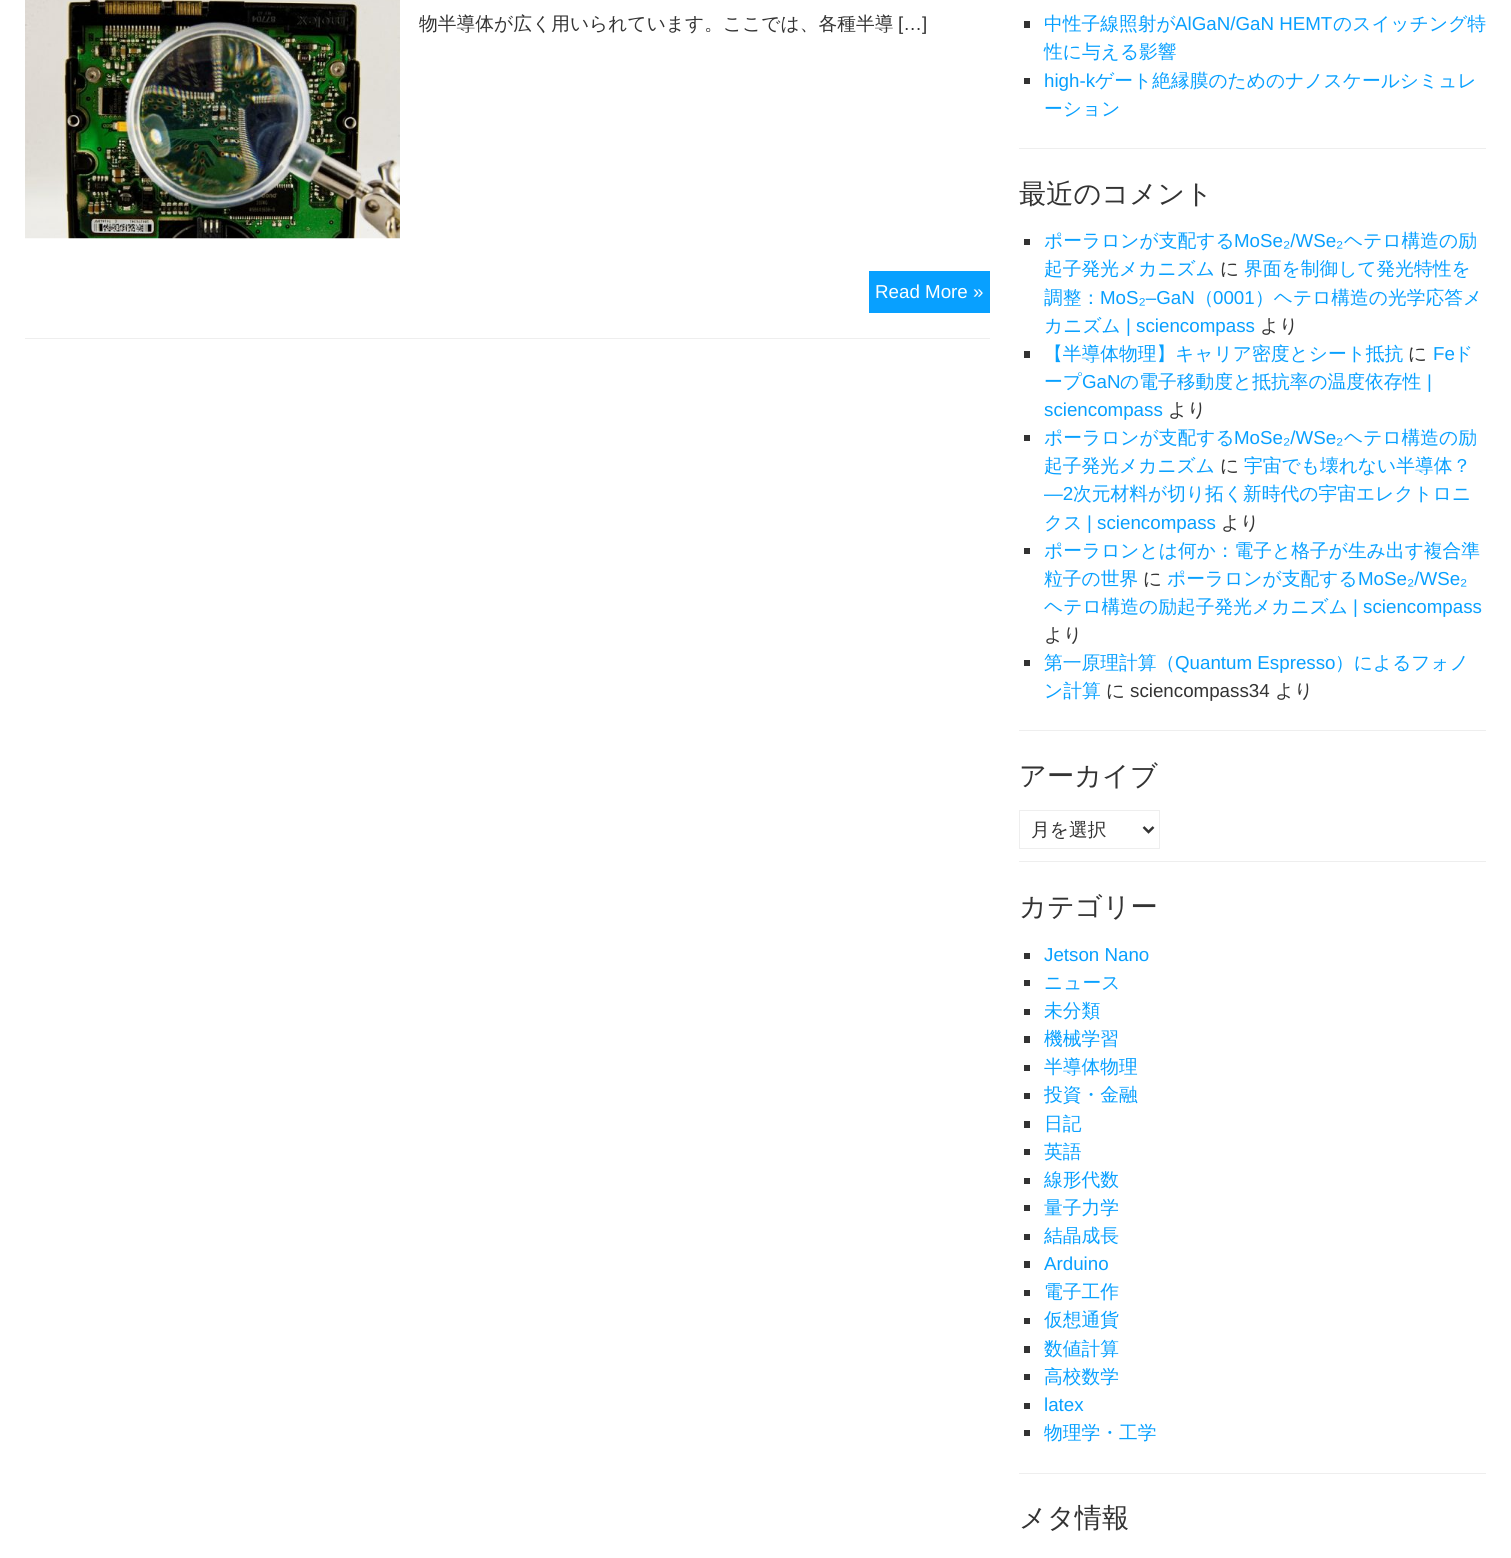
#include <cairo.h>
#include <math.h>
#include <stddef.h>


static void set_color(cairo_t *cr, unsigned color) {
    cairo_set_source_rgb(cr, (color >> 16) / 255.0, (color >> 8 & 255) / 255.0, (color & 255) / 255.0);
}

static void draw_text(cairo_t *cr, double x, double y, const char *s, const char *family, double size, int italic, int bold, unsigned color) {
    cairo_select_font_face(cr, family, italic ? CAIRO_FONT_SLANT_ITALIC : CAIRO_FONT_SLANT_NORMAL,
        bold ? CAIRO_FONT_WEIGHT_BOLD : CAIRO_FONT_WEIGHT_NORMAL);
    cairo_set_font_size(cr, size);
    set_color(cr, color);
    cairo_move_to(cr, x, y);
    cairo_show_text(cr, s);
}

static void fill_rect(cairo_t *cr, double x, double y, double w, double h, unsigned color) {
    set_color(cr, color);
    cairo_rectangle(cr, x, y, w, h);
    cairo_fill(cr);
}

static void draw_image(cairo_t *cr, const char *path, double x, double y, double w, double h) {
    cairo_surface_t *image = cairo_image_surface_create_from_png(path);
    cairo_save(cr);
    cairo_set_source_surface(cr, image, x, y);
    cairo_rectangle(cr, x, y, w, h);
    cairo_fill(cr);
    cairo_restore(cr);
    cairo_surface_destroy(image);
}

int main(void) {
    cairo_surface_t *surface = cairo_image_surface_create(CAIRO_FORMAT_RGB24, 1511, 1558);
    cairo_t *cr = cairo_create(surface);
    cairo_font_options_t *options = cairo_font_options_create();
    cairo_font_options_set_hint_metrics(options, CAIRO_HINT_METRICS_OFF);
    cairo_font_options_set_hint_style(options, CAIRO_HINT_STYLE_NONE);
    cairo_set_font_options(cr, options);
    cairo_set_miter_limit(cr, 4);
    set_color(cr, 0xFFFFFF);
    cairo_paint(cr);
    fill_rect(cr, 25, 338, 965, 1, 0xEEEEEE);
    draw_image(cr, "assets/img1.png", 25, 0, 375, 239);
    draw_text(cr, 419, 30, "物半導体が広く用いられています。ここでは、各種半導", "WenQuanYi Zen Hei Medium", 18.75, 0, 0, 0x333333);
    draw_text(cr, 898, 30, "[…]", "Liberation Sans", 18.75, 0, 0, 0x333333);
    fill_rect(cr, 869, 271, 121, 42, 0x08A0FF);
    draw_text(cr, 875, 298, "Read More »", "Liberation Sans", 18.75, 0, 0, 0xFFFFFF);
    fill_rect(cr, 1019, 148, 467, 1, 0xEEEEEE);
    fill_rect(cr, 1024, 21, 6, 7, 0x333333);
    draw_text(cr, 1044, 30, "中性子線照射が", "WenQuanYi Zen Hei Medium", 18.75, 0, 0, 0x08A0FF);
    draw_text(cr, 1175, 30, "AlGaN/GaN HEMT", "Liberation Sans", 18.75, 0, 0, 0x08A0FF);
    draw_text(cr, 1333, 30, "のスイッチング特", "WenQuanYi Zen Hei Medium", 18.75, 0, 0, 0x08A0FF);
    draw_text(cr, 1044, 58, "性に与える影響", "WenQuanYi Zen Hei Medium", 18.75, 0, 0, 0x08A0FF);
    fill_rect(cr, 1024, 78, 6, 6, 0x333333);
    draw_text(cr, 1044, 87, "high-k", "Liberation Sans", 18.75, 0, 0, 0x08A0FF);
    draw_text(cr, 1095, 87, "ゲート絶縁膜のためのナノスケールシミュレ", "WenQuanYi Zen Hei Medium", 18.75, 0, 0, 0x08A0FF);
    draw_text(cr, 1044, 115, "ーション", "WenQuanYi Zen Hei Medium", 18.75, 0, 0, 0x08A0FF);
    fill_rect(cr, 1019, 730, 467, 1, 0xEEEEEE);
    draw_text(cr, 1019, 203, "最近のコメント", "WenQuanYi Zen Hei Medium", 27.25, 0, 0, 0x333333);
    fill_rect(cr, 1024, 239, 6, 6, 0x333333);
    draw_text(cr, 1044, 247, "ポーラロンが支配する", "WenQuanYi Zen Hei Medium", 18.75, 0, 0, 0x08A0FF);
    draw_text(cr, 1234, 247, "MoSe₂/WSe₂", "Liberation Sans", 18.75, 0, 0, 0x08A0FF);
    draw_text(cr, 1344, 247, "ヘテロ構造の励", "WenQuanYi Zen Hei Medium", 18.75, 0, 0, 0x08A0FF);
    draw_text(cr, 1044, 275, "起子発光メカニズム", "WenQuanYi Zen Hei Medium", 18.75, 0, 0, 0x08A0FF);
    draw_text(cr, 1220, 275, "に", "WenQuanYi Zen Hei Medium", 18.75, 0, 0, 0x333333);
    draw_text(cr, 1244, 275, "界面を制御して発光特性を", "WenQuanYi Zen Hei Medium", 18.75, 0, 0, 0x08A0FF);
    draw_text(cr, 1044, 304, "調整：", "WenQuanYi Zen Hei Medium", 18.75, 0, 0, 0x08A0FF);
    draw_text(cr, 1100, 304, "MoS₂–GaN", "Liberation Sans", 18.75, 0, 0, 0x08A0FF);
    draw_text(cr, 1195, 304, "（", "WenQuanYi Zen Hei Medium", 18.75, 0, 0, 0x08A0FF);
    draw_text(cr, 1213, 304, "0001", "Liberation Sans", 18.75, 0, 0, 0x08A0FF);
    draw_text(cr, 1255, 304, "）ヘテロ構造の光学応答メ", "WenQuanYi Zen Hei Medium", 18.75, 0, 0, 0x08A0FF);
    draw_text(cr, 1044, 332, "カニズム", "WenQuanYi Zen Hei Medium", 18.75, 0, 0, 0x08A0FF);
    draw_text(cr, 1126, 332, "| sciencompass", "Liberation Sans", 18.75, 0, 0, 0x08A0FF);
    draw_text(cr, 1260, 332, "より", "WenQuanYi Zen Hei Medium", 18.75, 0, 0, 0x333333);
    fill_rect(cr, 1024, 351, 6, 7, 0x333333);
    draw_text(cr, 1044, 360, "【半導体物理】キャリア密度とシート抵抗", "WenQuanYi Zen Hei Medium", 18.75, 0, 0, 0x08A0FF);
    draw_text(cr, 1408, 360, "に", "WenQuanYi Zen Hei Medium", 18.75, 0, 0, 0x333333);
    draw_text(cr, 1433, 360, "Fe", "Liberation Sans", 18.75, 0, 0, 0x08A0FF);
    draw_text(cr, 1454, 360, "ド", "WenQuanYi Zen Hei Medium", 18.75, 0, 0, 0x08A0FF);
    draw_text(cr, 1044, 388, "ープ", "WenQuanYi Zen Hei Medium", 18.75, 0, 0, 0x08A0FF);
    draw_text(cr, 1082, 388, "GaN", "Liberation Sans", 18.75, 0, 0, 0x08A0FF);
    draw_text(cr, 1120, 388, "の電子移動度と抵抗率の温度依存性", "WenQuanYi Zen Hei Medium", 18.75, 0, 0, 0x08A0FF);
    draw_text(cr, 1427, 388, "|", "Liberation Sans", 18.75, 0, 0, 0x08A0FF);
    draw_text(cr, 1044, 416, "sciencompass", "Liberation Sans", 18.75, 0, 0, 0x08A0FF);
    draw_text(cr, 1168, 416, "より", "WenQuanYi Zen Hei Medium", 18.75, 0, 0, 0x333333);
    fill_rect(cr, 1024, 435, 6, 6, 0x333333);
    draw_text(cr, 1044, 444, "ポーラロンが支配する", "WenQuanYi Zen Hei Medium", 18.75, 0, 0, 0x08A0FF);
    draw_text(cr, 1234, 444, "MoSe₂/WSe₂", "Liberation Sans", 18.75, 0, 0, 0x08A0FF);
    draw_text(cr, 1344, 444, "ヘテロ構造の励", "WenQuanYi Zen Hei Medium", 18.75, 0, 0, 0x08A0FF);
    draw_text(cr, 1044, 472, "起子発光メカニズム", "WenQuanYi Zen Hei Medium", 18.75, 0, 0, 0x08A0FF);
    draw_text(cr, 1220, 472, "に", "WenQuanYi Zen Hei Medium", 18.75, 0, 0, 0x333333);
    draw_text(cr, 1244, 472, "宇宙でも壊れない半導体？", "WenQuanYi Zen Hei Medium", 18.75, 0, 0, 0x08A0FF);
    draw_text(cr, 1044, 500, "―2", "Liberation Sans", 18.75, 0, 0, 0x08A0FF);
    draw_text(cr, 1073, 500, "次元材料が切り拓く新時代の宇宙エレクトロニ", "WenQuanYi Zen Hei Medium", 18.75, 0, 0, 0x08A0FF);
    draw_text(cr, 1044, 529, "クス", "WenQuanYi Zen Hei Medium", 18.75, 0, 0, 0x08A0FF);
    draw_text(cr, 1087, 529, "| sciencompass", "Liberation Sans", 18.75, 0, 0, 0x08A0FF);
    draw_text(cr, 1221, 529, "より", "WenQuanYi Zen Hei Medium", 18.75, 0, 0, 0x333333);
    fill_rect(cr, 1024, 548, 6, 6, 0x333333);
    draw_text(cr, 1044, 557, "ポーラロンとは何か：電子と格子が生み出す複合準", "WenQuanYi Zen Hei Medium", 18.75, 0, 0, 0x08A0FF);
    draw_text(cr, 1044, 585, "粒子の世界", "WenQuanYi Zen Hei Medium", 18.75, 0, 0, 0x08A0FF);
    draw_text(cr, 1143, 585, "に", "WenQuanYi Zen Hei Medium", 18.75, 0, 0, 0x333333);
    draw_text(cr, 1167, 585, "ポーラロンが支配する", "WenQuanYi Zen Hei Medium", 18.75, 0, 0, 0x08A0FF);
    draw_text(cr, 1358, 585, "MoSe₂/WSe₂", "Liberation Sans", 18.75, 0, 0, 0x08A0FF);
    draw_text(cr, 1044, 613, "ヘテロ構造の励起子発光メカニズム", "WenQuanYi Zen Hei Medium", 18.75, 0, 0, 0x08A0FF);
    draw_text(cr, 1353, 613, "| sciencompass", "Liberation Sans", 18.75, 0, 0, 0x08A0FF);
    draw_text(cr, 1044, 641, "より", "WenQuanYi Zen Hei Medium", 18.75, 0, 0, 0x333333);
    fill_rect(cr, 1024, 660, 6, 6, 0x333333);
    draw_text(cr, 1044, 669, "第一原理計算（", "WenQuanYi Zen Hei Medium", 18.75, 0, 0, 0x08A0FF);
    draw_text(cr, 1175, 669, "Quantum Espresso", "Liberation Sans", 18.75, 0, 0, 0x08A0FF);
    draw_text(cr, 1335, 669, "）によるフォノ", "WenQuanYi Zen Hei Medium", 18.75, 0, 0, 0x08A0FF);
    draw_text(cr, 1044, 697, "ン計算", "WenQuanYi Zen Hei Medium", 18.75, 0, 0, 0x08A0FF);
    draw_text(cr, 1106, 697, "に", "WenQuanYi Zen Hei Medium", 18.75, 0, 0, 0x333333);
    draw_text(cr, 1130, 697, "sciencompass34", "Liberation Sans", 18.75, 0, 0, 0x333333);
    draw_text(cr, 1275, 697, "より", "WenQuanYi Zen Hei Medium", 18.75, 0, 0, 0x333333);
    fill_rect(cr, 1019, 861, 467, 1, 0xEEEEEE);
    draw_text(cr, 1019, 785, "アーカイブ", "WenQuanYi Zen Hei Medium", 27.25, 0, 0, 0x333333);
    cairo_rectangle(cr, 1019.5, 810.5, 140, 38);
    set_color(cr, 0xEEEEEE);
    cairo_set_line_width(cr, 1);
    cairo_stroke(cr);
    cairo_new_path(cr);
    cairo_move_to(cr, 1143.5, 827);
    cairo_line_to(cr, 1148.5, 832);
    cairo_line_to(cr, 1153.5, 827);
    set_color(cr, 0x333333);
    cairo_set_line_width(cr, 2.5);
    cairo_stroke(cr);
    draw_text(cr, 1031, 836, "月を選択", "WenQuanYi Zen Hei Medium", 18.75, 0, 0, 0x333333);
    fill_rect(cr, 1019, 1473, 467, 1, 0xEEEEEE);
    draw_text(cr, 1019, 916, "カテゴリー", "WenQuanYi Zen Hei Medium", 27.25, 0, 0, 0x333333);
    fill_rect(cr, 1024, 953, 6, 6, 0x333333);
    draw_text(cr, 1044, 961, "Jetson Nano", "Liberation Sans", 18.75, 0, 0, 0x08A0FF);
    fill_rect(cr, 1024, 980, 6, 6, 0x333333);
    draw_text(cr, 1044, 989, "ニュース", "WenQuanYi Zen Hei Medium", 18.75, 0, 0, 0x08A0FF);
    fill_rect(cr, 1024, 1009, 6, 6, 0x333333);
    draw_text(cr, 1044, 1017, "未分類", "WenQuanYi Zen Hei Medium", 18.75, 0, 0, 0x08A0FF);
    fill_rect(cr, 1024, 1036, 6, 7, 0x333333);
    draw_text(cr, 1044, 1045, "機械学習", "WenQuanYi Zen Hei Medium", 18.75, 0, 0, 0x08A0FF);
    fill_rect(cr, 1024, 1065, 6, 6, 0x333333);
    draw_text(cr, 1044, 1073, "半導体物理", "WenQuanYi Zen Hei Medium", 18.75, 0, 0, 0x08A0FF);
    fill_rect(cr, 1024, 1093, 6, 6, 0x333333);
    draw_text(cr, 1044, 1101, "投資・金融", "WenQuanYi Zen Hei Medium", 18.75, 0, 0, 0x08A0FF);
    fill_rect(cr, 1024, 1121, 6, 7, 0x333333);
    draw_text(cr, 1044, 1130, "日記", "WenQuanYi Zen Hei Medium", 18.75, 0, 0, 0x08A0FF);
    fill_rect(cr, 1024, 1149, 6, 6, 0x333333);
    draw_text(cr, 1044, 1158, "英語", "WenQuanYi Zen Hei Medium", 18.75, 0, 0, 0x08A0FF);
    fill_rect(cr, 1024, 1178, 6, 6, 0x333333);
    draw_text(cr, 1044, 1186, "線形代数", "WenQuanYi Zen Hei Medium", 18.75, 0, 0, 0x08A0FF);
    fill_rect(cr, 1024, 1205, 6, 6, 0x333333);
    draw_text(cr, 1044, 1214, "量子力学", "WenQuanYi Zen Hei Medium", 18.75, 0, 0, 0x08A0FF);
    fill_rect(cr, 1024, 1234, 6, 6, 0x333333);
    draw_text(cr, 1044, 1242, "結晶成長", "WenQuanYi Zen Hei Medium", 18.75, 0, 0, 0x08A0FF);
    fill_rect(cr, 1024, 1261, 6, 7, 0x333333);
    draw_text(cr, 1044, 1270, "Arduino", "Liberation Sans", 18.75, 0, 0, 0x08A0FF);
    fill_rect(cr, 1024, 1290, 6, 6, 0x333333);
    draw_text(cr, 1044, 1298, "電子工作", "WenQuanYi Zen Hei Medium", 18.75, 0, 0, 0x08A0FF);
    fill_rect(cr, 1024, 1318, 6, 6, 0x333333);
    draw_text(cr, 1044, 1326, "仮想通貨", "WenQuanYi Zen Hei Medium", 18.75, 0, 0, 0x08A0FF);
    fill_rect(cr, 1024, 1346, 6, 7, 0x333333);
    draw_text(cr, 1044, 1355, "数値計算", "WenQuanYi Zen Hei Medium", 18.75, 0, 0, 0x08A0FF);
    fill_rect(cr, 1024, 1374, 6, 6, 0x333333);
    draw_text(cr, 1044, 1383, "高校数学", "WenQuanYi Zen Hei Medium", 18.75, 0, 0, 0x08A0FF);
    fill_rect(cr, 1024, 1403, 6, 6, 0x333333);
    draw_text(cr, 1044, 1411, "latex", "Liberation Sans", 18.75, 0, 0, 0x08A0FF);
    fill_rect(cr, 1024, 1430, 6, 6, 0x333333);
    draw_text(cr, 1044, 1439, "物理学・工学", "WenQuanYi Zen Hei Medium", 18.75, 0, 0, 0x08A0FF);
    draw_text(cr, 1019, 1527, "メタ情報", "WenQuanYi Zen Hei Medium", 27.25, 0, 0, 0x333333);
    cairo_surface_write_to_png(surface, "output.png");
    cairo_font_options_destroy(options);
    cairo_destroy(cr);
    cairo_surface_destroy(surface);
    return 0;
}
